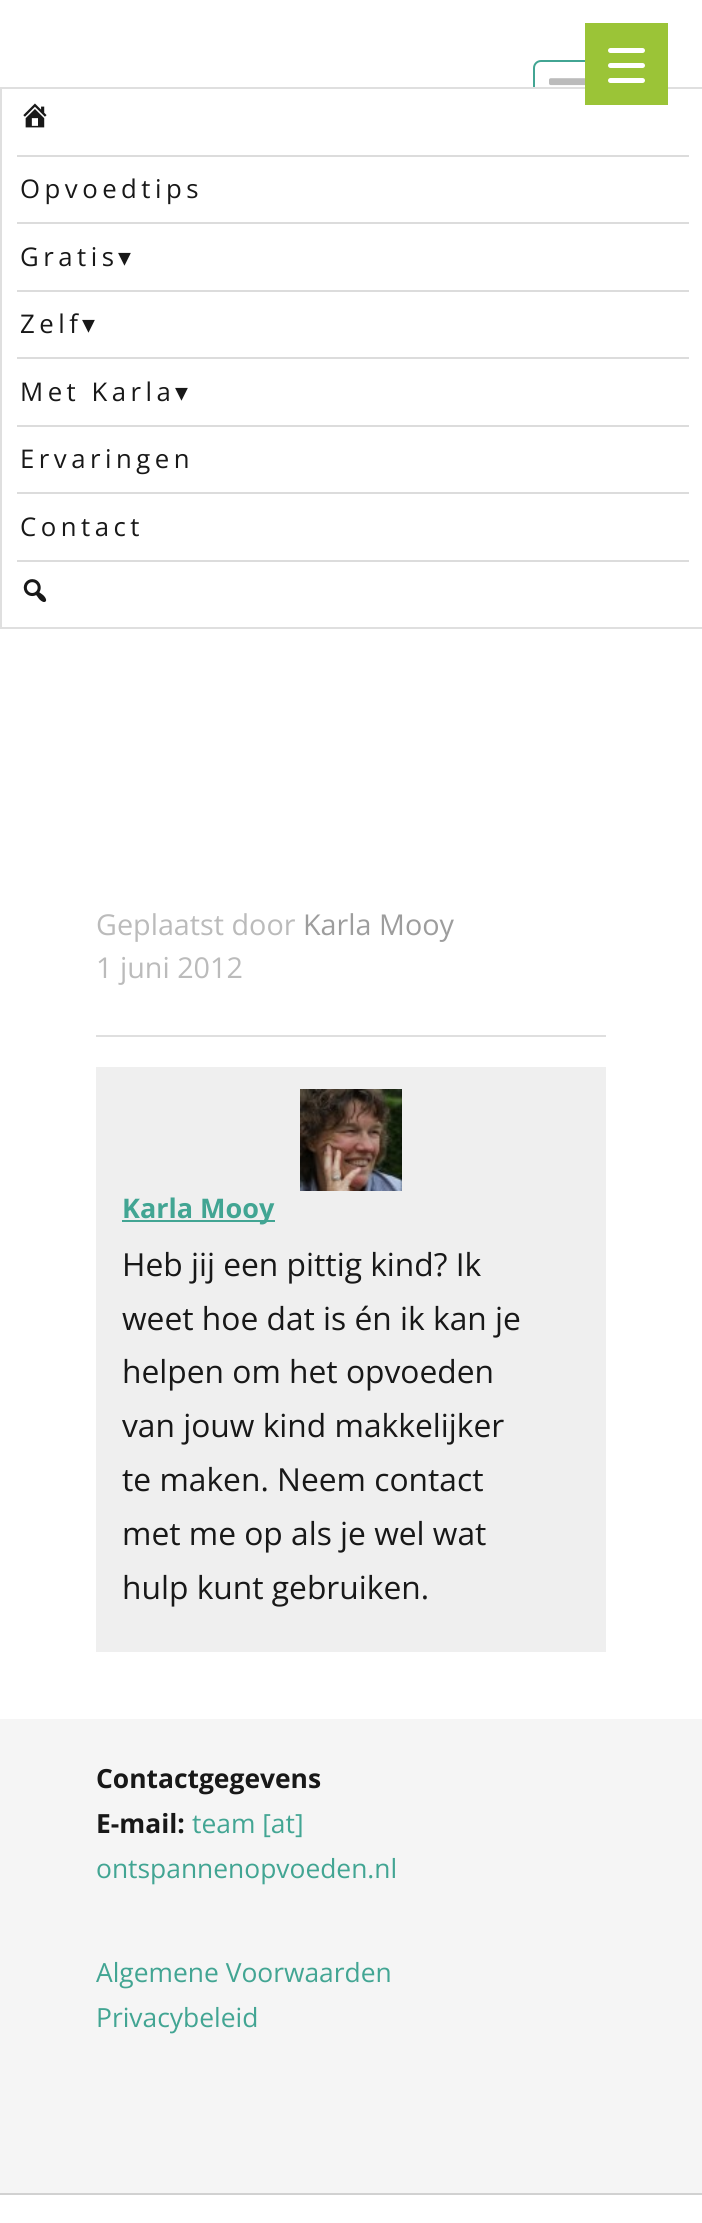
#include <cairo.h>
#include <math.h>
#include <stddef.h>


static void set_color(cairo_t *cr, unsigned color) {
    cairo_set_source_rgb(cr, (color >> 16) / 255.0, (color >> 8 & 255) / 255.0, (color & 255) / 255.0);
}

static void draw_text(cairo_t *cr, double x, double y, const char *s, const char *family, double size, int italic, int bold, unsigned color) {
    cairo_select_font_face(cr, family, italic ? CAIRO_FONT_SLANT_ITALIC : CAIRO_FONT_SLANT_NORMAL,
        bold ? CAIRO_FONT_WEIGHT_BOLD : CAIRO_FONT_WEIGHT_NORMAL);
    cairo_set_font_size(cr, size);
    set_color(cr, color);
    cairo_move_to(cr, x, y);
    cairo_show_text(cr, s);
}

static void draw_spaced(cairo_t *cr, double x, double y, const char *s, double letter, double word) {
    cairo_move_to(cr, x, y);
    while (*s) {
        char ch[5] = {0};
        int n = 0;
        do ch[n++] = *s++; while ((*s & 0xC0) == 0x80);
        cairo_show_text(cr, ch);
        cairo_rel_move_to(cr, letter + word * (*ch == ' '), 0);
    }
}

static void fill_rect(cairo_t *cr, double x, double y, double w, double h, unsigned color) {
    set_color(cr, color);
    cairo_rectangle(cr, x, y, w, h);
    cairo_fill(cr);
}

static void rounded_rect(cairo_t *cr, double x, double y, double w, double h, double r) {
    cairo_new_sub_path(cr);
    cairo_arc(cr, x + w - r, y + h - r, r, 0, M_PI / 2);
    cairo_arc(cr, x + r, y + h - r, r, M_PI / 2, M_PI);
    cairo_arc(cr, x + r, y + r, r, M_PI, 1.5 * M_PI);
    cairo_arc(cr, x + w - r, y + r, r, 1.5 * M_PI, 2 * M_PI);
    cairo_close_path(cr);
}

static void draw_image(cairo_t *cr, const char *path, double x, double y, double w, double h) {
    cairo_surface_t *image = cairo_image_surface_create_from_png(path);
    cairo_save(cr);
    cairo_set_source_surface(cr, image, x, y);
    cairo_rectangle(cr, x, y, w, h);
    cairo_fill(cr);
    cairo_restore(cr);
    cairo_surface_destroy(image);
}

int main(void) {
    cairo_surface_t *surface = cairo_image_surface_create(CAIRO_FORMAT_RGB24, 702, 2223);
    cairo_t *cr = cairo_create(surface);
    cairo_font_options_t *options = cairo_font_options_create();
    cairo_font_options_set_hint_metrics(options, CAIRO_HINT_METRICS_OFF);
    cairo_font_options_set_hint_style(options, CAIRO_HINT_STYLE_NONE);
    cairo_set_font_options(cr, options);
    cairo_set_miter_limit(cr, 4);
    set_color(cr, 0xFFFFFF);
    cairo_paint(cr);
    rounded_rect(cr, 534, 61, 71, 72, 7);
    set_color(cr, 0x42A593);
    cairo_stroke(cr);
    fill_rect(cr, 533, 89, 73, 45, 0xFFFFFF);
    cairo_rectangle(cr, 1, 88, 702, 540);
    set_color(cr, 0xDFDFDF);
    cairo_stroke(cr);
    fill_rect(cr, 585, 23, 83, 82, 0x9BC437);
    set_color(cr, 0xFFFFFF);
    rounded_rect(cr, 608, 63, 37, 5, 2.5);
    cairo_fill(cr);
    rounded_rect(cr, 608, 48, 37, 5, 2.5);
    cairo_fill(cr);
    rounded_rect(cr, 608, 78, 37, 5, 2.5);
    cairo_fill(cr);
    draw_image(cr, "assets/img1.png", 549, 78, 36, 8);
    draw_image(cr, "assets/img2.png", 23, 103, 24, 25);
    fill_rect(cr, 17, 155, 672, 2, 0xDCDCDC);
    cairo_select_font_face(cr, "Open Sans", CAIRO_FONT_SLANT_NORMAL, CAIRO_FONT_WEIGHT_NORMAL);
    cairo_set_font_size(cr, 25.75);
    set_color(cr, 0x181818);
    draw_spaced(cr, 20, 198, "Opvoedtips", 4.5, 0);
    fill_rect(cr, 17, 222, 672, 2, 0xDCDCDC);
    set_color(cr, 0x181818);
    draw_spaced(cr, 20, 266, "Gratis", 4.5, 0);
    cairo_select_font_face(cr, "DejaVu Sans", CAIRO_FONT_SLANT_NORMAL, CAIRO_FONT_WEIGHT_NORMAL);
    draw_spaced(cr, 118, 266, "▾", 4.5, 0);
    fill_rect(cr, 17, 290, 672, 2, 0xDCDCDC);
    cairo_select_font_face(cr, "Open Sans", CAIRO_FONT_SLANT_NORMAL, CAIRO_FONT_WEIGHT_NORMAL);
    set_color(cr, 0x181818);
    draw_spaced(cr, 20, 333, "Zelf", 4.5, 0);
    cairo_select_font_face(cr, "DejaVu Sans", CAIRO_FONT_SLANT_NORMAL, CAIRO_FONT_WEIGHT_NORMAL);
    draw_spaced(cr, 82, 333, "▾", 4.5, 0);
    fill_rect(cr, 17, 357, 672, 2, 0xDCDCDC);
    cairo_select_font_face(cr, "Open Sans", CAIRO_FONT_SLANT_NORMAL, CAIRO_FONT_WEIGHT_NORMAL);
    set_color(cr, 0x181818);
    draw_spaced(cr, 20, 401, "Met Karla", 4.5, 0);
    cairo_select_font_face(cr, "DejaVu Sans", CAIRO_FONT_SLANT_NORMAL, CAIRO_FONT_WEIGHT_NORMAL);
    draw_spaced(cr, 175, 401, "▾", 4.5, 0);
    fill_rect(cr, 17, 425, 672, 2, 0xDCDCDC);
    cairo_select_font_face(cr, "Open Sans", CAIRO_FONT_SLANT_NORMAL, CAIRO_FONT_WEIGHT_NORMAL);
    set_color(cr, 0x181818);
    draw_spaced(cr, 20, 468, "Ervaringen", 4.5, 0);
    fill_rect(cr, 17, 492, 672, 2, 0xDCDCDC);
    set_color(cr, 0x181818);
    draw_spaced(cr, 20, 536, "Contact", 4.5, 0);
    fill_rect(cr, 17, 560, 672, 2, 0xDCDCDC);
    draw_image(cr, "assets/img3.png", 23, 579, 24, 23);
    fill_rect(cr, 96, 1035, 510, 2, 0xDFDFDF);
    draw_text(cr, 96, 935, "Geplaatst door", "Open Sans", 28.75, 0, 0, 0xBBBBBB);
    draw_text(cr, 303, 935, "Karla Mooy", "Open Sans", 28.75, 0, 0, 0x9D9D9D);
    draw_text(cr, 96, 978, "1 juni 2012", "Open Sans", 28.75, 0, 0, 0xBBBBBB);
    fill_rect(cr, 96, 1067, 510, 585, 0xEFEFEF);
    draw_image(cr, "assets/img4.png", 300, 1089, 102, 102);
    fill_rect(cr, 122, 1220, 153, 2, 0x42A593);
    draw_text(cr, 122, 1218, "Karla Mooy", "Open Sans", 27, 0, 1, 0x42A593);
    draw_text(cr, 122, 1276, "Heb jij een pittig kind? Ik", "Open Sans", 31.75, 0, 0, 0x181818);
    draw_text(cr, 122, 1330, "weet hoe dat is én ik kan je", "Open Sans", 31.75, 0, 0, 0x181818);
    draw_text(cr, 122, 1383, "helpen om het opvoeden", "Open Sans", 31.75, 0, 0, 0x181818);
    draw_text(cr, 122, 1437, "van jouw kind makkelijker", "Open Sans", 31.75, 0, 0, 0x181818);
    draw_text(cr, 122, 1491, "te maken. Neem contact", "Open Sans", 31.75, 0, 0, 0x181818);
    draw_text(cr, 122, 1545, "met me op als je wel wat", "Open Sans", 31.75, 0, 0, 0x181818);
    draw_text(cr, 122, 1599, "hulp kunt gebruiken.", "Open Sans", 31.75, 0, 0, 0x181818);
    fill_rect(cr, 0, 1719, 702, 474, 0xF5F5F5);
    fill_rect(cr, 0, 2193, 702, 2, 0xD1D1D1);
    draw_text(cr, 96, 1788, "Contactgegevens", "Open Sans", 26.4, 0, 1, 0x181818);
    draw_text(cr, 96, 1833, "E-mail:", "Open Sans", 26.4, 0, 1, 0x181818);
    draw_text(cr, 192, 1833, "team [at]", "Open Sans", 26.4, 0, 0, 0x42A593);
    draw_text(cr, 96, 1878, "ontspannenopvoeden.nl", "Open Sans", 26.4, 0, 0, 0x42A593);
    draw_text(cr, 96, 1982, "Algemene Voorwaarden", "Open Sans", 26.4, 0, 0, 0x42A593);
    draw_text(cr, 96, 2027, "Privacybeleid", "Open Sans", 26.4, 0, 0, 0x42A593);
    cairo_surface_write_to_png(surface, "output.png");
    cairo_font_options_destroy(options);
    cairo_destroy(cr);
    cairo_surface_destroy(surface);
    return 0;
}
